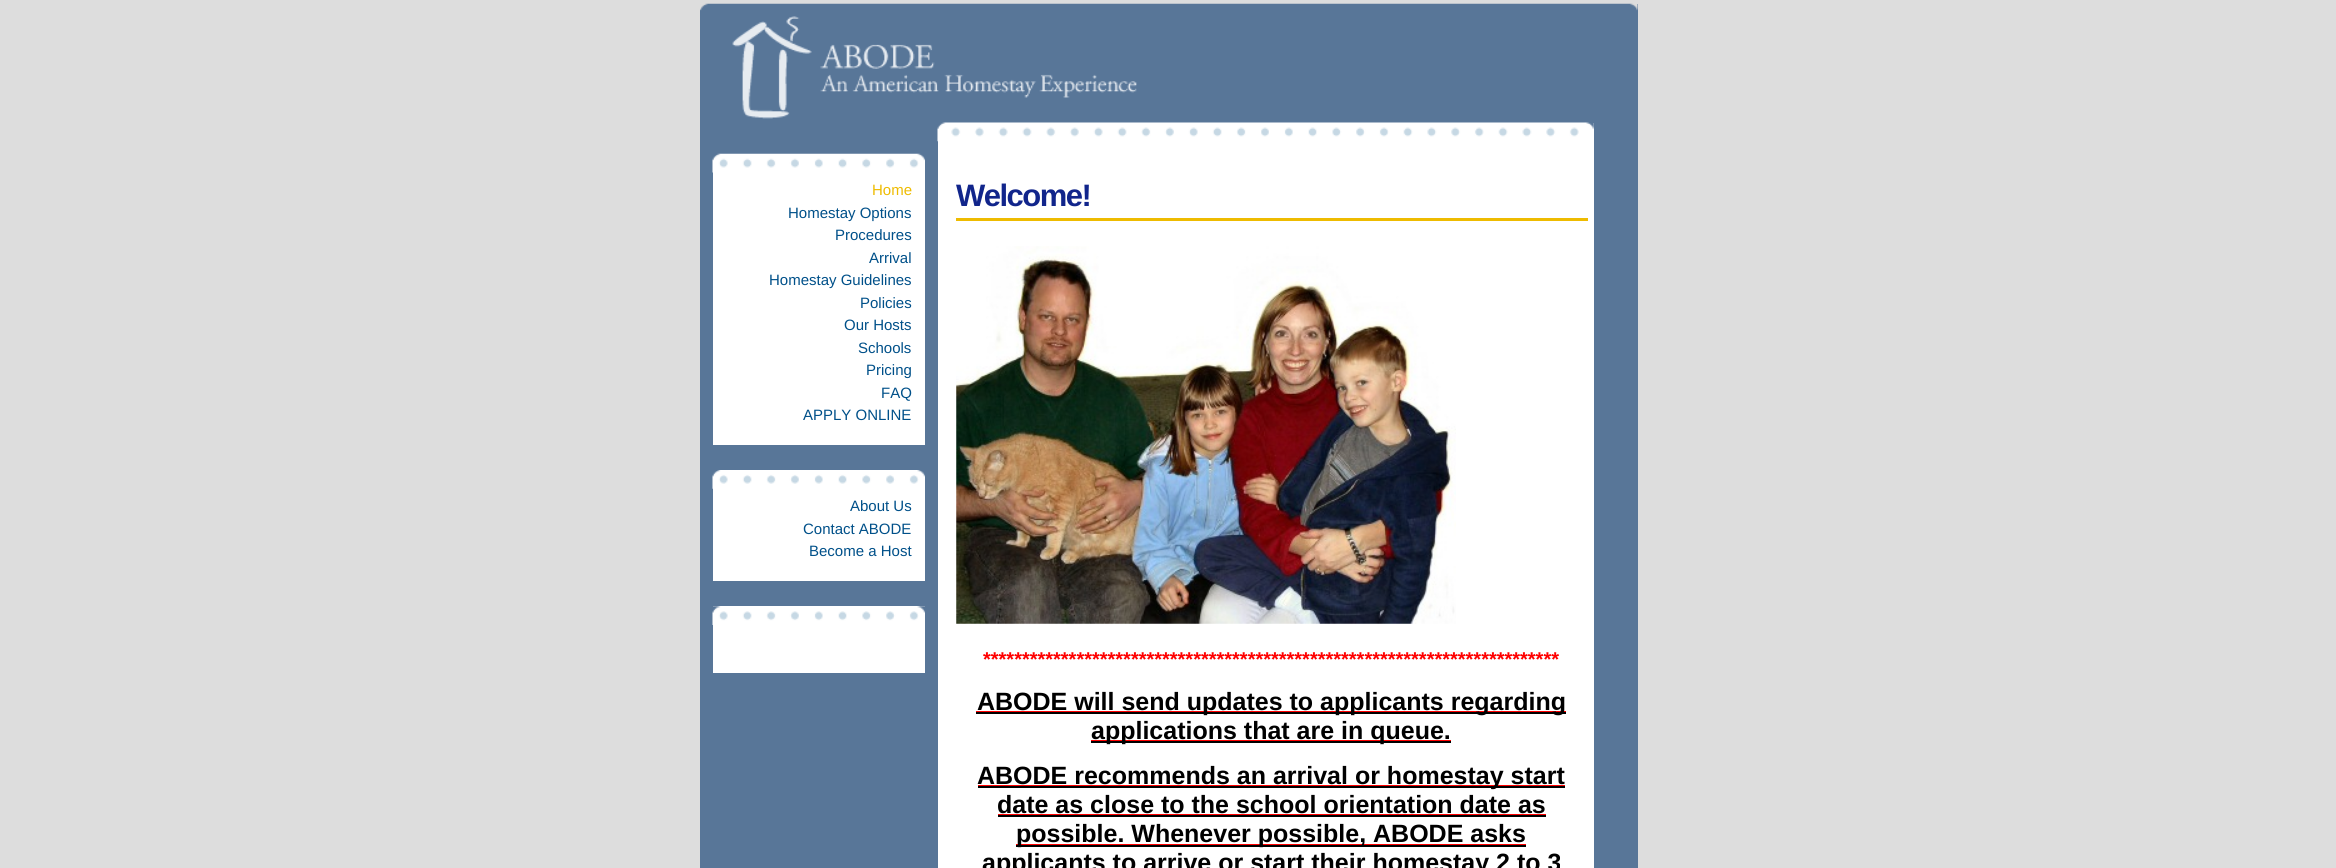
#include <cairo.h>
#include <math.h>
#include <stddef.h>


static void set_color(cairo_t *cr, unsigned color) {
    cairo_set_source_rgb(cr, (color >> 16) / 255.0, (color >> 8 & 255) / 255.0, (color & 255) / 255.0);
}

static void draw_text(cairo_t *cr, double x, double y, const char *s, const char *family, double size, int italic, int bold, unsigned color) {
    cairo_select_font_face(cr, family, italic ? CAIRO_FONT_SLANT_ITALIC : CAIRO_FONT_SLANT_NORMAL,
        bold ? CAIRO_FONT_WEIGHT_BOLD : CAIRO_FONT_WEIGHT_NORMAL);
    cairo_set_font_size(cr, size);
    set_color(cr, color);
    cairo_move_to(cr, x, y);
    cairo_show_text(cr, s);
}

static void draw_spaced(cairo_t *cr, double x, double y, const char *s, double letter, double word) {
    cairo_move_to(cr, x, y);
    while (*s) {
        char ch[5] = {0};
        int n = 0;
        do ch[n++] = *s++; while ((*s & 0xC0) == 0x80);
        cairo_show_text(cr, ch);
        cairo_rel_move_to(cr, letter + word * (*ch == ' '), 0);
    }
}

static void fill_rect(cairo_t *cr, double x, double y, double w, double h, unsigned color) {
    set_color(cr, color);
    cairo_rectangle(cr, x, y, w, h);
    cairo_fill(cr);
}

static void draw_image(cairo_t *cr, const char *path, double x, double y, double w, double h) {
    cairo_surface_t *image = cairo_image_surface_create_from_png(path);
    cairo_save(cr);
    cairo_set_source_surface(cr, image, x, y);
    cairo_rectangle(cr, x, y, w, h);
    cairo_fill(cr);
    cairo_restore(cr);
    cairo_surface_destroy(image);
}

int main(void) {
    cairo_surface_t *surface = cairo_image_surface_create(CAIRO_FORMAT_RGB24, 2336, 868);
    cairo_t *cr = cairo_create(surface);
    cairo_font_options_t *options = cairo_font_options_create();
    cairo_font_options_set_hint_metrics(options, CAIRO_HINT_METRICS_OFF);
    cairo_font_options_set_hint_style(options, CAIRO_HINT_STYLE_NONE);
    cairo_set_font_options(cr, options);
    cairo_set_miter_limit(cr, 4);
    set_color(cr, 0xDDDDDD);
    cairo_paint(cr);
    fill_rect(cr, 700, 4, 938, 864, 0x587698);
    draw_image(cr, "assets/img1.png", 700, 3, 938, 8);
    draw_image(cr, "assets/img2.png", 732, 16, 405, 103);
    fill_rect(cr, 713, 172, 212, 273, 0xFFFFFF);
    draw_image(cr, "assets/img3.png", 712, 153, 213, 20);
    draw_text(cr, 872, 195, "Home", "Liberation Sans", 15, 0, 0, 0xEEBB00);
    draw_text(cr, 788, 218, "Homestay Options", "Liberation Sans", 15, 0, 0, 0x005089);
    draw_text(cr, 835, 240, "Procedures", "Liberation Sans", 15, 0, 0, 0x005089);
    draw_text(cr, 869, 263, "Arrival", "Liberation Sans", 15, 0, 0, 0x005089);
    draw_text(cr, 769, 285, "Homestay Guidelines", "Liberation Sans", 15, 0, 0, 0x005089);
    draw_text(cr, 860, 308, "Policies", "Liberation Sans", 15, 0, 0, 0x005089);
    draw_text(cr, 844, 330, "Our Hosts", "Liberation Sans", 15, 0, 0, 0x005089);
    draw_text(cr, 858, 353, "Schools", "Liberation Sans", 15, 0, 0, 0x005089);
    draw_text(cr, 866, 375, "Pricing", "Liberation Sans", 15, 0, 0, 0x005089);
    draw_text(cr, 881, 398, "FAQ", "Liberation Sans", 15, 0, 0, 0x005089);
    draw_text(cr, 803, 420, "APPLY ONLINE", "Liberation Sans", 15, 0, 0, 0x005089);
    fill_rect(cr, 713, 488, 212, 93, 0xFFFFFF);
    draw_image(cr, "assets/img4.png", 712, 470, 213, 19);
    draw_text(cr, 850, 511, "About Us", "Liberation Sans", 15, 0, 0, 0x005089);
    draw_text(cr, 803, 534, "Contact ABODE", "Liberation Sans", 15, 0, 0, 0x005089);
    draw_text(cr, 809, 556, "Become a Host", "Liberation Sans", 15, 0, 0, 0x005089);
    fill_rect(cr, 713, 606, 212, 67, 0xFFFFFF);
    draw_image(cr, "assets/img5.png", 712, 606, 213, 19);
    fill_rect(cr, 938, 123, 656, 745, 0xFFFFFF);
    draw_image(cr, "assets/img6.png", 937, 122, 657, 20);
    fill_rect(cr, 956, 218, 632, 3, 0xEEBB00);
    cairo_select_font_face(cr, "Liberation Sans", CAIRO_FONT_SLANT_NORMAL, CAIRO_FONT_WEIGHT_BOLD);
    cairo_set_font_size(cr, 31);
    set_color(cr, 0x11258B);
    draw_spaced(cr, 956, 206, "Welcome!", -1.5, 0);
    draw_image(cr, "assets/img7.png", 956, 246, 500, 378);
    draw_text(cr, 983, 666, "**************************************************************************", "Liberation Sans", 20, 0, 1, 0xFF0000);
    fill_rect(cr, 976, 712, 590, 2, 0x000000);
    fill_rect(cr, 976, 711, 590, 1, 0xFF0000);
    draw_text(cr, 977, 710, "ABODE will send updates to applicants regarding", "Liberation Sans", 25, 0, 1, 0x000000);
    fill_rect(cr, 1091, 741, 360, 2, 0x000000);
    fill_rect(cr, 1091, 740, 360, 1, 0xFF0000);
    draw_text(cr, 1091, 739, "applications that are in queue.", "Liberation Sans", 25, 0, 1, 0x000000);
    fill_rect(cr, 978, 786, 587, 2, 0x000000);
    fill_rect(cr, 978, 785, 587, 1, 0xFF0000);
    draw_text(cr, 977, 784, "ABODE recommends an arrival or homestay start", "Liberation Sans", 25, 0, 1, 0x000000);
    draw_text(cr, 997, 813, "date as close to the school orientation date as", "Liberation Sans", 25, 0, 1, 0x000000);
    fill_rect(cr, 998, 815, 548, 2, 0x000000);
    fill_rect(cr, 998, 814, 548, 1, 0xFF0000);
    fill_rect(cr, 1016, 845, 510, 2, 0x000000);
    fill_rect(cr, 1016, 844, 510, 1, 0xFF0000);
    draw_text(cr, 1016, 842, "possible. Whenever possible, ABODE asks", "Liberation Sans", 25, 0, 1, 0x000000);
    draw_text(cr, 982, 871, "applicants to arrive or start their homestay 2 to 3", "Liberation Sans", 25, 0, 1, 0x000000);
    cairo_surface_write_to_png(surface, "output.png");
    cairo_font_options_destroy(options);
    cairo_destroy(cr);
    cairo_surface_destroy(surface);
    return 0;
}
